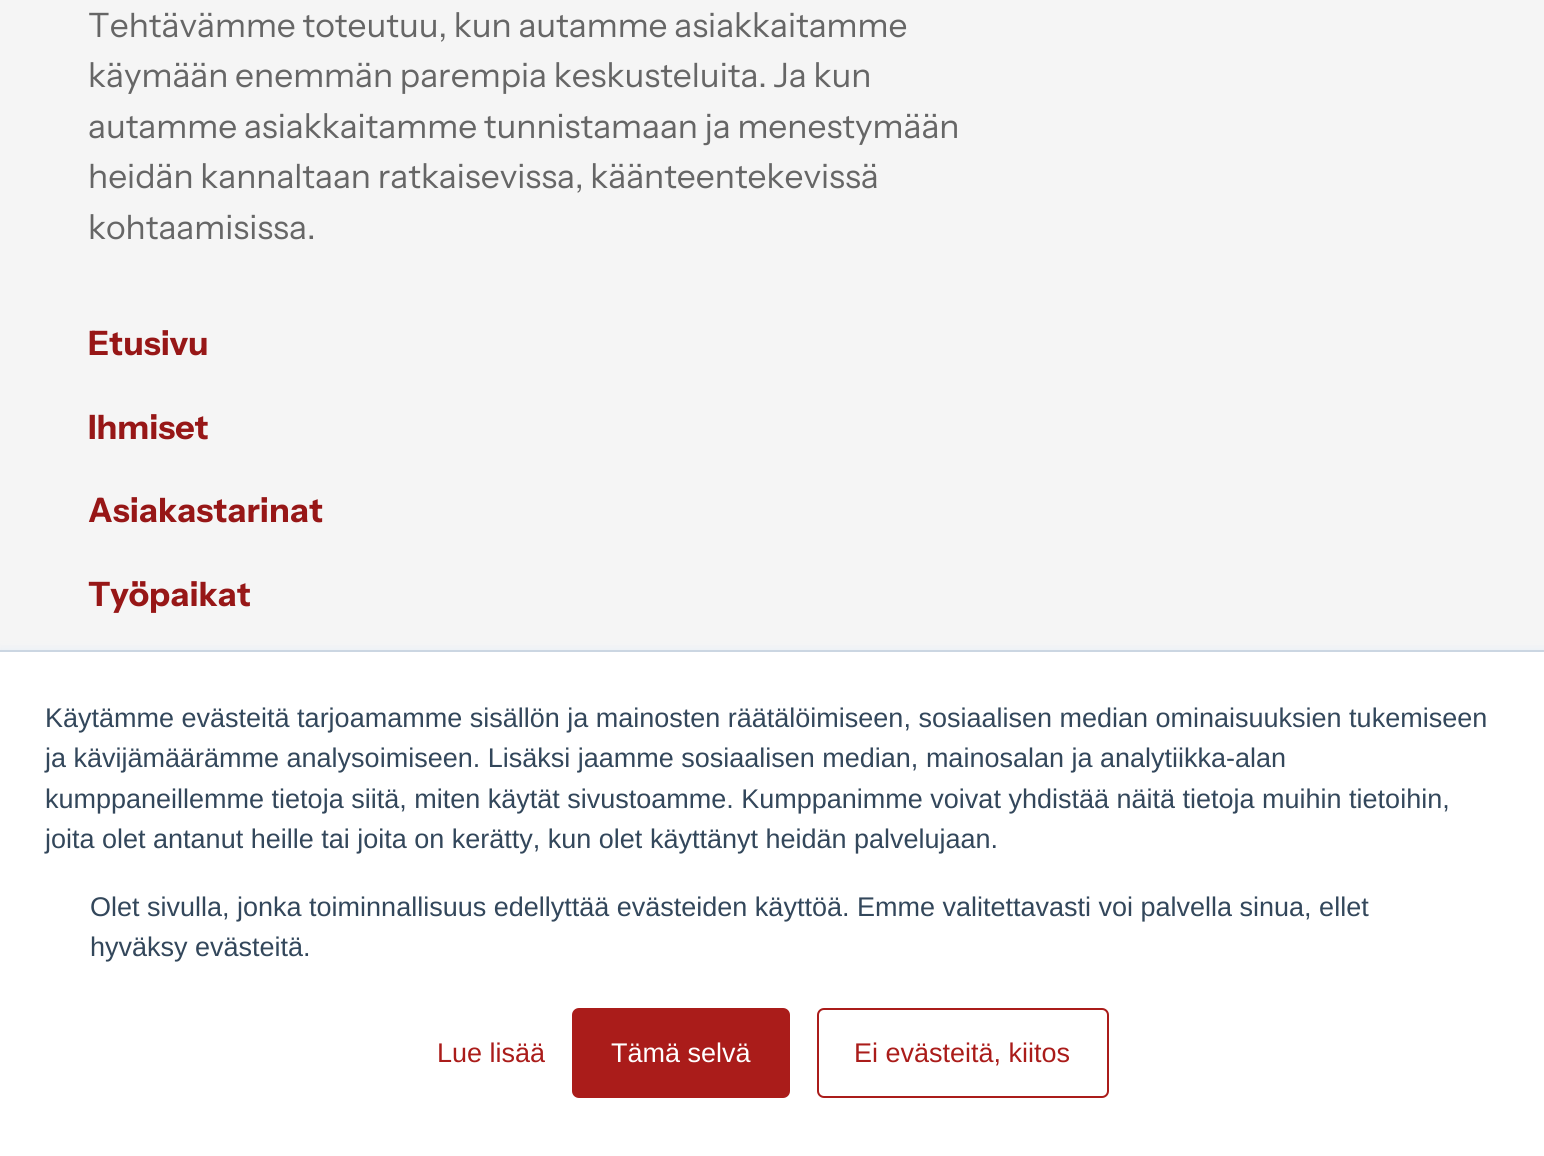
#include <cairo.h>
#include <math.h>
#include <stddef.h>


static void set_color(cairo_t *cr, unsigned color) {
    cairo_set_source_rgb(cr, (color >> 16) / 255.0, (color >> 8 & 255) / 255.0, (color & 255) / 255.0);
}

static void draw_text(cairo_t *cr, double x, double y, const char *s, const char *family, double size, int italic, int bold, unsigned color) {
    cairo_select_font_face(cr, family, italic ? CAIRO_FONT_SLANT_ITALIC : CAIRO_FONT_SLANT_NORMAL,
        bold ? CAIRO_FONT_WEIGHT_BOLD : CAIRO_FONT_WEIGHT_NORMAL);
    cairo_set_font_size(cr, size);
    set_color(cr, color);
    cairo_move_to(cr, x, y);
    cairo_show_text(cr, s);
}

static void fill_rect(cairo_t *cr, double x, double y, double w, double h, unsigned color) {
    set_color(cr, color);
    cairo_rectangle(cr, x, y, w, h);
    cairo_fill(cr);
}

static void rounded_rect(cairo_t *cr, double x, double y, double w, double h, double r) {
    cairo_new_sub_path(cr);
    cairo_arc(cr, x + w - r, y + h - r, r, 0, M_PI / 2);
    cairo_arc(cr, x + r, y + h - r, r, M_PI / 2, M_PI);
    cairo_arc(cr, x + r, y + r, r, M_PI, 1.5 * M_PI);
    cairo_arc(cr, x + w - r, y + r, r, 1.5 * M_PI, 2 * M_PI);
    cairo_close_path(cr);
}

static void draw_shadow(cairo_t *cr, double x, double y, double w, double h, double r, double blur, double alpha) {
    cairo_push_group_with_content(cr, CAIRO_CONTENT_ALPHA);
    cairo_set_operator(cr, CAIRO_OPERATOR_SOURCE);
    for (int i = 15; i >= -15 && fmin(w, h) + blur * i / 3 > 0; i -= 2) {
        double e = blur * i / 6;
        cairo_set_source_rgba(cr, 0, 0, 0, alpha * erfc((i - 1) / 8.5) / 2);
        rounded_rect(cr, x - e, y - e, w + 2 * e, h + 2 * e, fmax(0, fmin(r + e + blur * .6, fmin(w, h) / 2 + e)));
        cairo_fill(cr);
    }
    cairo_pattern_t *soft = cairo_pop_group(cr);
    cairo_mask(cr, soft);
    cairo_pattern_destroy(soft);
}

int main(void) {
    cairo_surface_t *surface = cairo_image_surface_create(CAIRO_FORMAT_RGB24, 1544, 1156);
    cairo_t *cr = cairo_create(surface);
    cairo_font_options_t *options = cairo_font_options_create();
    cairo_font_options_set_hint_metrics(options, CAIRO_HINT_METRICS_OFF);
    cairo_font_options_set_hint_style(options, CAIRO_HINT_STYLE_NONE);
    cairo_set_font_options(cr, options);
    cairo_set_miter_limit(cr, 4);
    set_color(cr, 0xF5F5F5);
    cairo_paint(cr);
    draw_text(cr, 88, 37, "Tehtävämme toteutuu, kun autamme asiakkaitamme", "Instrument Sans", 33.6, 0, 0, 0x666666);
    draw_text(cr, 88, 87, "käymään enemmän parempia keskusteluita. Ja kun", "Instrument Sans", 33.6, 0, 0, 0x666666);
    draw_text(cr, 88, 138, "autamme asiakkaitamme tunnistamaan ja menestymään", "Instrument Sans", 33.6, 0, 0, 0x666666);
    draw_text(cr, 88, 188, "heidän kannaltaan ratkaisevissa, käänteentekevissä", "Instrument Sans", 33.6, 0, 0, 0x666666);
    draw_text(cr, 88, 239, "kohtaamisissa.", "Instrument Sans", 33.6, 0, 0, 0x666666);
    draw_text(cr, 88, 355, "Etusivu", "Instrument Sans", 33.6, 0, 1, 0x971717);
    draw_text(cr, 88, 439, "Ihmiset", "Instrument Sans", 33.6, 0, 1, 0x971717);
    draw_text(cr, 88, 522, "Asiakastarinat", "Instrument Sans", 33.6, 0, 1, 0x971717);
    draw_text(cr, 88, 606, "Työpaikat", "Instrument Sans", 33.6, 0, 1, 0x971717);
    set_color(cr, 0xEAF0F6);
    draw_shadow(cr, 0, 648, 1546, 506, 0, 3.5, 1);
    fill_rect(cr, 0, 652, 1544, 504, 0xFFFFFF);
    fill_rect(cr, 0, 650, 1544, 2, 0xCBD6E2);
    draw_text(cr, 45, 727, "Käytämme evästeitä tarjoamamme sisällön ja mainosten räätälöimiseen, sosiaalisen median ominaisuuksien tukemiseen", "Liberation Sans", 27, 0, 0, 0x33475B);
    draw_text(cr, 45, 767, "ja kävijämäärämme analysoimiseen. Lisäksi jaamme sosiaalisen median, mainosalan ja analytiikka-alan", "Liberation Sans", 27, 0, 0, 0x33475B);
    draw_text(cr, 45, 808, "kumppaneillemme tietoja siitä, miten käytät sivustoamme. Kumppanimme voivat yhdistää näitä tietoja muihin tietoihin,", "Liberation Sans", 27, 0, 0, 0x33475B);
    draw_text(cr, 45, 848, "joita olet antanut heille tai joita on kerätty, kun olet käyttänyt heidän palvelujaan.", "Liberation Sans", 27, 0, 0, 0x33475B);
    draw_text(cr, 90, 916, "Olet sivulla, jonka toiminnallisuus edellyttää evästeiden käyttöä. Emme valitettavasti voi palvella sinua, ellet", "Liberation Sans", 27, 0, 0, 0x33475B);
    draw_text(cr, 90, 956, "hyväksy evästeitä.", "Liberation Sans", 27, 0, 0, 0x33475B);
    draw_text(cr, 437, 1062, "Lue lisää", "Liberation Sans", 27, 0, 0, 0xAA1C1A);
    rounded_rect(cr, 573, 1009, 216, 88, 6);
    cairo_fill_preserve(cr);
    cairo_stroke(cr);
    draw_text(cr, 611, 1062, "Tämä selvä", "Liberation Sans", 27, 0, 0, 0xFFFFFF);
    rounded_rect(cr, 818, 1009, 290, 88, 6);
    set_color(cr, 0xAA1C1A);
    cairo_stroke(cr);
    draw_text(cr, 854, 1062, "Ei evästeitä, kiitos", "Liberation Sans", 27, 0, 0, 0xAA1C1A);
    cairo_surface_write_to_png(surface, "output.png");
    cairo_font_options_destroy(options);
    cairo_destroy(cr);
    cairo_surface_destroy(surface);
    return 0;
}
